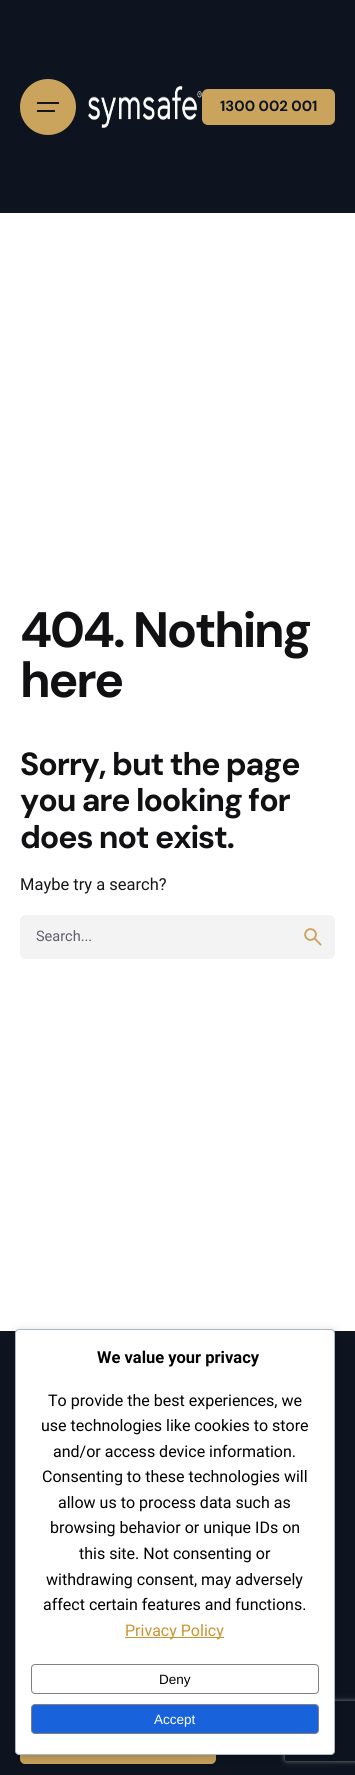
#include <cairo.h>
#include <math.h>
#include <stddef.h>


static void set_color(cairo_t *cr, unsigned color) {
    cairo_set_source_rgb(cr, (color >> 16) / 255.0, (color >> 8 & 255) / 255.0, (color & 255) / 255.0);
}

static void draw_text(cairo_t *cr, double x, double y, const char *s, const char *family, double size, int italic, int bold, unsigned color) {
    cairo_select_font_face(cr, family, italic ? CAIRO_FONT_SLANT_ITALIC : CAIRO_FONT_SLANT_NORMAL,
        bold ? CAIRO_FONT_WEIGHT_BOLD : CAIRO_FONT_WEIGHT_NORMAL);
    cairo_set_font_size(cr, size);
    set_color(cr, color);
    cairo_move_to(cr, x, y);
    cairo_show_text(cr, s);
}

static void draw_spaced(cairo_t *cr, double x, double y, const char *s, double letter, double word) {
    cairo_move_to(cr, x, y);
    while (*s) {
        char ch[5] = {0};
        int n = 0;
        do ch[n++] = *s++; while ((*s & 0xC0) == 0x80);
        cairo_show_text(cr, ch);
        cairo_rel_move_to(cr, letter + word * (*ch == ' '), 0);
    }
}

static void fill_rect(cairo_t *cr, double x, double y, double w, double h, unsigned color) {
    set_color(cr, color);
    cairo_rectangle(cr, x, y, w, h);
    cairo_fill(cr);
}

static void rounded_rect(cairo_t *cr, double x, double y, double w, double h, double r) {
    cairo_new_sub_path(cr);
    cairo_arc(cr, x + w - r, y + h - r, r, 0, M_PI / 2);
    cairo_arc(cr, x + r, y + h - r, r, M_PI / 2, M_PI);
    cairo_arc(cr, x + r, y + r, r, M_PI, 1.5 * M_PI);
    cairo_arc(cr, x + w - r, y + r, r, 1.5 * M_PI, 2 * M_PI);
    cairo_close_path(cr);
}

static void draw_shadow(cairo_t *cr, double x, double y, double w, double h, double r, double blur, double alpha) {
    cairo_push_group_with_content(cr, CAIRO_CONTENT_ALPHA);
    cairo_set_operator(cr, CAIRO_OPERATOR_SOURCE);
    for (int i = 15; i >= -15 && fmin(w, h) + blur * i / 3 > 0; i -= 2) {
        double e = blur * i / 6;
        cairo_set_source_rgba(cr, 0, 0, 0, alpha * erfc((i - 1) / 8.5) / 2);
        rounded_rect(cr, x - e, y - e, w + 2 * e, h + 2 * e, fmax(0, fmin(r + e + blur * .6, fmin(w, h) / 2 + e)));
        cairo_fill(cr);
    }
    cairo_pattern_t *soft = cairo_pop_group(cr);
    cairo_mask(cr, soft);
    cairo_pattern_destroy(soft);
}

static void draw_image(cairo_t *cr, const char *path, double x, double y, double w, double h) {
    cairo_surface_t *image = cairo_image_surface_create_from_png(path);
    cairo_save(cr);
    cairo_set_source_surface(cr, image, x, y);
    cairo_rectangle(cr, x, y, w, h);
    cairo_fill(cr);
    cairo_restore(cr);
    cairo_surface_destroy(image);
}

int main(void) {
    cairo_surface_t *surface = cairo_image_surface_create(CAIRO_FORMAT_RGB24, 355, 1775);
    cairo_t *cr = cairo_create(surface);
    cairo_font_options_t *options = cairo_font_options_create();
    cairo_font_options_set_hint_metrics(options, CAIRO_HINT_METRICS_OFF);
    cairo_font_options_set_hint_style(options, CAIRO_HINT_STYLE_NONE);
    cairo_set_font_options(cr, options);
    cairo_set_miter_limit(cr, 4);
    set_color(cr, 0xFFFFFF);
    cairo_paint(cr);
    fill_rect(cr, 0, 0, 355, 213, 0x0D141F);
    set_color(cr, 0xCAA45D);
    cairo_arc(cr, 48, 107, 28, 0, 2 * M_PI);
    cairo_fill(cr);
    fill_rect(cr, 37, 102, 22, 2, 0x161519);
    fill_rect(cr, 37, 110, 18, 2, 0x161519);
    draw_image(cr, "assets/img1.png", 88, 86, 114, 42);
    set_color(cr, 0xCAA45D);
    rounded_rect(cr, 202, 89, 133, 36, 6);
    cairo_fill(cr);
    draw_text(cr, 220, 111, "1300 002 001", "DM Sans", 14.75, 0, 1, 0x0D141F);
    cairo_set_font_size(cr, 49.75);
    set_color(cr, 0x111013);
    draw_spaced(cr, 20, 647, "404. Nothing", -2.25, 0);
    draw_spaced(cr, 20, 697, "here", -2.25, 0);
    cairo_set_font_size(cr, 32);
    draw_spaced(cr, 20, 775, "Sorry, but the page", -1.1, 0);
    draw_spaced(cr, 20, 811, "you are looking for", -1.1, 0);
    draw_spaced(cr, 20, 848, "does not exist.", -1.1, 0);
    draw_text(cr, 20, 890, "Maybe try a search?", "Roboto", 16.5, 0, 0, 0x161519);
    set_color(cr, 0xF3F3F4);
    rounded_rect(cr, 20, 915, 315, 44, 6);
    cairo_fill(cr);
    draw_text(cr, 36, 941, "Search...", "Roboto", 14.5, 0, 0, 0x635D6E);
    draw_image(cr, "assets/img2.png", 304, 928, 18, 18);
    fill_rect(cr, 0, 1331, 355, 444, 0x0D141F);
    set_color(cr, 0xCAA45D);
    rounded_rect(cr, 20, 1714, 196, 50, 5);
    cairo_fill(cr);
    set_color(cr, 0x000000);
    draw_shadow(cr, 16, 1332, 320, 426, 4, 5, 0.2);
    cairo_save(cr);
    cairo_set_fill_rule(cr, CAIRO_FILL_RULE_EVEN_ODD);
    cairo_new_path(cr);
    cairo_move_to(cr, 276, 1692);
    cairo_line_to(cr, 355, 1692);
    cairo_line_to(cr, 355, 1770);
    cairo_line_to(cr, 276, 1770);
    cairo_close_path(cr);
    cairo_move_to(cr, 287, 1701);
    cairo_line_to(cr, 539, 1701);
    cairo_curve_to(cr, 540, 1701, 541, 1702, 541, 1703);
    cairo_line_to(cr, 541, 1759);
    cairo_curve_to(cr, 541, 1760, 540, 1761, 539, 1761);
    cairo_line_to(cr, 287, 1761);
    cairo_curve_to(cr, 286, 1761, 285, 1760, 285, 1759);
    cairo_line_to(cr, 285, 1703);
    cairo_curve_to(cr, 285, 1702, 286, 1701, 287, 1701);
    cairo_close_path(cr);
    cairo_clip(cr);
    set_color(cr, 0x808080);
    draw_shadow(cr, 285, 1701, 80, 60, 2, 2.5, 1);
    cairo_restore(cr);
    set_color(cr, 0xFFFFFF);
    rounded_rect(cr, 15.5, 1329.5, 319, 425, 3.5);
    cairo_fill_preserve(cr);
    set_color(cr, 0xABB8C3);
    cairo_set_line_width(cr, 1);
    cairo_stroke(cr);
    draw_text(cr, 97, 1363, "We value your privacy", "Roboto", 16.5, 0, 1, 0x000000);
    draw_text(cr, 48, 1406, "To provide the best experiences, we", "Roboto", 16, 0, 0, 0x000000);
    draw_text(cr, 41, 1431, "use technologies like cookies to store", "Roboto", 16, 0, 0, 0x000000);
    draw_text(cr, 53, 1457, "and/or access device information.", "Roboto", 16, 0, 0, 0x000000);
    draw_text(cr, 42, 1482, "Consenting to these technologies will", "Roboto", 16, 0, 0, 0x000000);
    draw_text(cr, 58, 1508, "allow us to process data such as", "Roboto", 16, 0, 0, 0x000000);
    draw_text(cr, 50, 1533, "browsing behavior or unique IDs on", "Roboto", 16, 0, 0, 0x000000);
    draw_text(cr, 79, 1559, "this site. Not consenting or", "Roboto", 16, 0, 0, 0x000000);
    draw_text(cr, 46, 1585, "withdrawing consent, may adversely", "Roboto", 16, 0, 0, 0x000000);
    draw_text(cr, 43, 1610, "affect certain features and functions.", "Roboto", 16, 0, 0, 0x000000);
    fill_rect(cr, 125, 1637, 99, 1, 0xCC922F);
    draw_text(cr, 125, 1636, "Privacy Policy", "Roboto", 16, 0, 0, 0xCC922F);
    rounded_rect(cr, 31.5, 1664.5, 287, 29, 3.5);
    set_color(cr, 0x808080);
    cairo_stroke(cr);
    draw_text(cr, 159, 1684, "Deny", "Liberation Sans", 13.5, 0, 0, 0x000000);
    set_color(cr, 0x1863DC);
    rounded_rect(cr, 31.5, 1704.5, 287, 29, 3.5);
    cairo_fill_preserve(cr);
    set_color(cr, 0x808080);
    cairo_stroke(cr);
    draw_text(cr, 154, 1724, "Accept", "Liberation Sans", 13.5, 0, 0, 0xFFFFFF);
    cairo_surface_write_to_png(surface, "output.png");
    cairo_font_options_destroy(options);
    cairo_destroy(cr);
    cairo_surface_destroy(surface);
    return 0;
}
